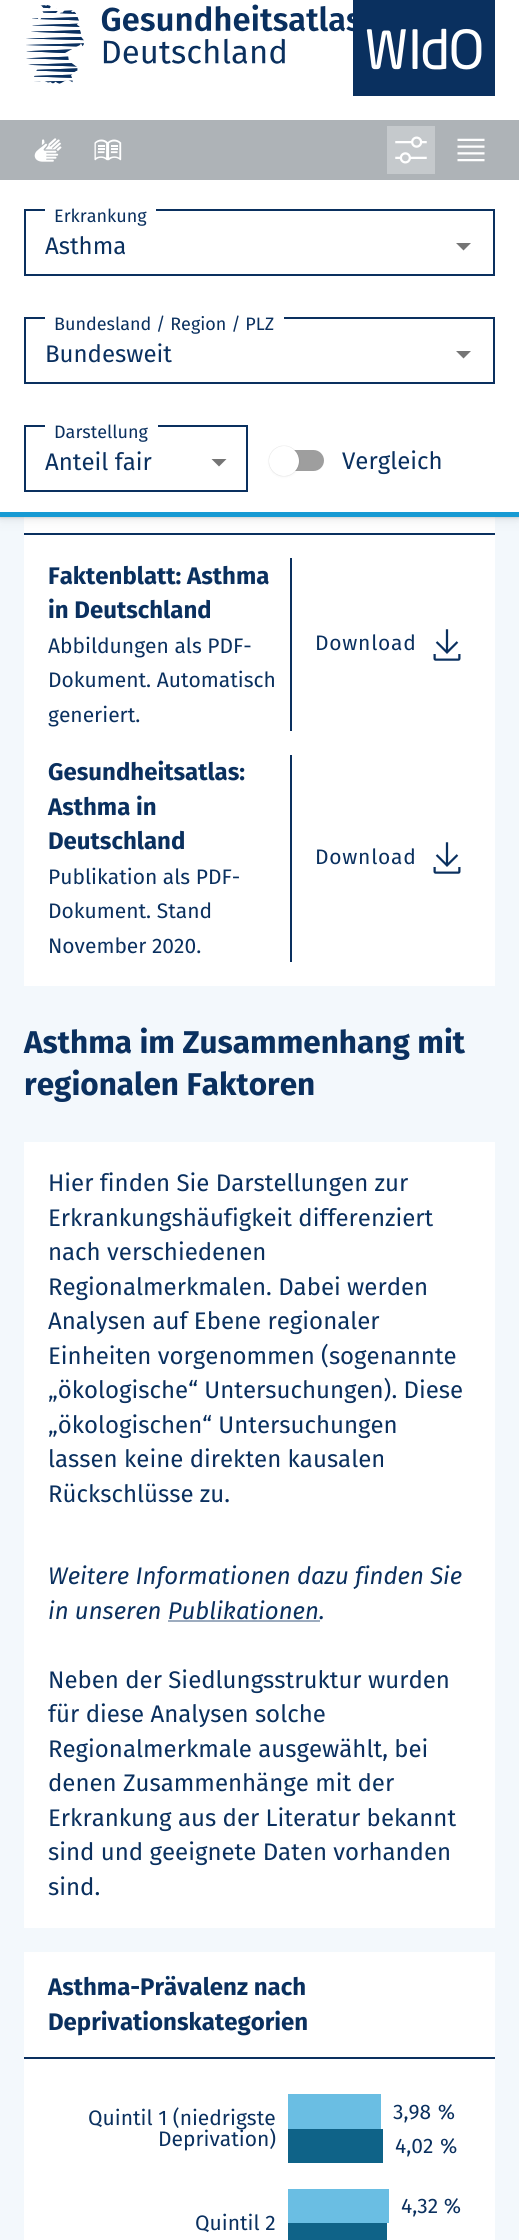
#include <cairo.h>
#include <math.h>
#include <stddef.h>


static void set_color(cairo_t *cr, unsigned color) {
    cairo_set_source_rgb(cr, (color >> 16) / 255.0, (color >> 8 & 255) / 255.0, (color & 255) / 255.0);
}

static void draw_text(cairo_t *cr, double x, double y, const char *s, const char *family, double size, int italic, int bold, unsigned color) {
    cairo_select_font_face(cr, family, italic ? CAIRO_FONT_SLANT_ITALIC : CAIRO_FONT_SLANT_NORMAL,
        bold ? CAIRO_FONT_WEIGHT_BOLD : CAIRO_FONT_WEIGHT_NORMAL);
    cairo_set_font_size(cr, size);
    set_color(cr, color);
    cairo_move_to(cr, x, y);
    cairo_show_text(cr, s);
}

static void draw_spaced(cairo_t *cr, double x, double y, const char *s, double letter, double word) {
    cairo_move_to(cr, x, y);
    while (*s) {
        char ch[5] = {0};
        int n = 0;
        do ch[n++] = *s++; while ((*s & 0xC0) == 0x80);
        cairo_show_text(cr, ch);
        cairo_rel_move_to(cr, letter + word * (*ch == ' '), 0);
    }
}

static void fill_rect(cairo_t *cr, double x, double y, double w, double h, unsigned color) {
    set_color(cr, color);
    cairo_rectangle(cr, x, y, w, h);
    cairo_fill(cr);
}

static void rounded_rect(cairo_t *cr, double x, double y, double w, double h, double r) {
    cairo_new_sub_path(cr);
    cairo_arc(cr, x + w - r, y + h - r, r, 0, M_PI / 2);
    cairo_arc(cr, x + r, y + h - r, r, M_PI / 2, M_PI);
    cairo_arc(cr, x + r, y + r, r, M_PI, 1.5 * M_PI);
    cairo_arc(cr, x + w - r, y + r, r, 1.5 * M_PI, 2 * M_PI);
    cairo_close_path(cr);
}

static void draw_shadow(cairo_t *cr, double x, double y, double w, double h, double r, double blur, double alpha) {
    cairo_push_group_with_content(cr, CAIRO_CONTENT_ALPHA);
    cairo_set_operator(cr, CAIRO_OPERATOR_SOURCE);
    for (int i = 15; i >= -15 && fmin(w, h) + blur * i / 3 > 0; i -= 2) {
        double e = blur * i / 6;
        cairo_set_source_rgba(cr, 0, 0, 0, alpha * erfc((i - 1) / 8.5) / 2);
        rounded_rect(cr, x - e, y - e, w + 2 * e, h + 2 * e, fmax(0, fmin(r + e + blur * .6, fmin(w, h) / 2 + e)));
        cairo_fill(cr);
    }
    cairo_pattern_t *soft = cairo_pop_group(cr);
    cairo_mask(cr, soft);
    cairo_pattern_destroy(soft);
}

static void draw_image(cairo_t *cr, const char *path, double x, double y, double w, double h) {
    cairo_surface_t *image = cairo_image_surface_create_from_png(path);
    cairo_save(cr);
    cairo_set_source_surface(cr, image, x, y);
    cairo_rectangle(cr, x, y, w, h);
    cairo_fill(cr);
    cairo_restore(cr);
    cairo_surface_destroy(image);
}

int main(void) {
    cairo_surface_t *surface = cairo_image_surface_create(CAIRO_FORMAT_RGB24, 519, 2240);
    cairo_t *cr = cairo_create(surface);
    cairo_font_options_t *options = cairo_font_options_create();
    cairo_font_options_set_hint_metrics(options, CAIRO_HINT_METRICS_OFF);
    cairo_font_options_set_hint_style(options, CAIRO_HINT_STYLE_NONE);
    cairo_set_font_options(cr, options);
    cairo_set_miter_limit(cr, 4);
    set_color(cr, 0xF3F8FC);
    cairo_paint(cr);
    fill_rect(cr, 0, 0, 519, 120, 0xFFFFFF);
    draw_image(cr, "assets/img1.png", 26, 4, 327, 80);
    draw_image(cr, "assets/img2.png", 353, 0, 142, 96);
    fill_rect(cr, 24, 517, 471, 469, 0xFFFFFF);
    fill_rect(cr, 24, 533, 471, 2, 0x0A305F);
    set_color(cr, 0x000000);
    draw_shadow(cr, 0, 186, 519, 336, 0, 8, 0.04);
    draw_shadow(cr, 0, 183, 519, 336, 0, 3, 0.06);
    draw_shadow(cr, 0, 182, 519, 336, 0, 1, 0.1);
    fill_rect(cr, 0, 120, 519, 60, 0xAEB3B7);
    draw_image(cr, "assets/img3.png", 34, 138, 28, 24);
    draw_image(cr, "assets/img4.png", 94, 139, 28, 22);
    fill_rect(cr, 387, 126, 48, 48, 0xC5C9CC);
    draw_image(cr, "assets/img5.png", 395, 136, 32, 28);
    draw_image(cr, "assets/img6.png", 457, 138, 28, 24);
    fill_rect(cr, 0, 180, 519, 332, 0xFFFFFF);
    fill_rect(cr, 0, 512, 519, 5, 0x179AD3);
    set_color(cr, 0x757575);
    cairo_new_path(cr);
    cairo_move_to(cr, 456, 243);
    cairo_line_to(cr, 463.5, 250.5);
    cairo_line_to(cr, 471, 243);
    cairo_close_path(cr);
    cairo_fill(cr);
    cairo_rectangle(cr, 25, 210, 469, 65);
    set_color(cr, 0x0A305F);
    cairo_stroke(cr);
    fill_rect(cr, 45, 209, 111, 2, 0xFFFFFF);
    draw_text(cr, 54, 222, "Erkrankung", "Fira Sans", 18, 0, 0, 0x0A305F);
    draw_text(cr, 45, 254, "Asthma", "Fira Sans", 24, 0, 0, 0x0A305F);
    set_color(cr, 0x757575);
    cairo_new_path(cr);
    cairo_move_to(cr, 456, 351);
    cairo_line_to(cr, 463.5, 358.5);
    cairo_line_to(cr, 471, 351);
    cairo_close_path(cr);
    cairo_fill(cr);
    cairo_rectangle(cr, 25, 318, 469, 65);
    set_color(cr, 0x0A305F);
    cairo_stroke(cr);
    fill_rect(cr, 45, 317, 239, 2, 0xFFFFFF);
    draw_text(cr, 54, 330, "Bundesland / Region / PLZ", "Fira Sans", 18, 0, 0, 0x0A305F);
    draw_text(cr, 45, 362, "Bundesweit", "Fira Sans", 24, 0, 0, 0x0A305F);
    set_color(cr, 0x757575);
    cairo_new_path(cr);
    cairo_move_to(cr, 211.5, 459);
    cairo_line_to(cr, 219, 466.5);
    cairo_line_to(cr, 226.5, 459);
    cairo_close_path(cr);
    cairo_fill(cr);
    cairo_rectangle(cr, 25, 426, 222, 65);
    set_color(cr, 0x0A305F);
    cairo_stroke(cr);
    fill_rect(cr, 45, 425, 113, 2, 0xFFFFFF);
    draw_text(cr, 54, 438, "Darstellung", "Fira Sans", 18, 0, 0, 0x0A305F);
    draw_text(cr, 45, 470, "Anteil fair", "Fira Sans", 24, 0, 0, 0x0A305F);
    set_color(cr, 0x9E9E9E);
    rounded_rect(cr, 273, 450, 51, 21, 10.5);
    cairo_fill(cr);
    set_color(cr, 0x000000);
    draw_shadow(cr, 269, 447, 30, 30, 15, 1.5, 0.04);
    draw_shadow(cr, 269, 446, 30, 30, 15, 0.5, 0.06);
    draw_shadow(cr, 269, 446, 30, 30, 15, 0.5, 0.1);
    set_color(cr, 0xFFFFFF);
    cairo_arc(cr, 284, 461, 15, 0, 2 * M_PI);
    cairo_fill(cr);
    draw_text(cr, 342, 469, "Vergleich", "Fira Sans", 24, 0, 0, 0x0A305F);
    fill_rect(cr, 290, 558, 2, 173, 0x0A305F);
    draw_text(cr, 48, 584, "Faktenblatt: Asthma", "Fira Sans", 24, 0, 1, 0x0A305F);
    draw_text(cr, 48, 618, "in Deutschland", "Fira Sans", 24, 0, 1, 0x0A305F);
    draw_text(cr, 48, 653, "Abbildungen als PDF-", "Fira Sans", 21, 0, 0, 0x0A305F);
    draw_text(cr, 48, 687, "Dokument. Automatisch", "Fira Sans", 21, 0, 0, 0x0A305F);
    draw_text(cr, 48, 722, "generiert.", "Fira Sans", 21, 0, 0, 0x0A305F);
    draw_spaced(cr, 315, 650, "Download", 0.75, 0);
    draw_image(cr, "assets/img7.png", 433, 629, 28, 32);
    fill_rect(cr, 290, 755, 2, 207, 0x0A305F);
    draw_text(cr, 48, 780, "Gesundheitsatlas:", "Fira Sans", 24, 0, 1, 0x0A305F);
    draw_text(cr, 48, 815, "Asthma in", "Fira Sans", 24, 0, 1, 0x0A305F);
    draw_text(cr, 48, 849, "Deutschland", "Fira Sans", 24, 0, 1, 0x0A305F);
    draw_text(cr, 48, 884, "Publikation als PDF-", "Fira Sans", 21, 0, 0, 0x0A305F);
    draw_text(cr, 48, 918, "Dokument. Stand", "Fira Sans", 21, 0, 0, 0x0A305F);
    draw_text(cr, 48, 953, "November 2020.", "Fira Sans", 21, 0, 0, 0x0A305F);
    draw_spaced(cr, 315, 864, "Download", 0.75, 0);
    draw_image(cr, "assets/img7.png", 433, 842, 28, 32);
    draw_text(cr, 24, 1053, "Asthma im Zusammenhang mit", "Fira Sans", 31.5, 0, 1, 0x0A305F);
    draw_text(cr, 24, 1095, "regionalen Faktoren", "Fira Sans", 31.5, 0, 1, 0x0A305F);
    fill_rect(cr, 24, 1142, 471, 786, 0xFFFFFF);
    draw_text(cr, 48, 1191, "Hier finden Sie Darstellungen zur", "Fira Sans", 24, 0, 0, 0x0A305F);
    draw_text(cr, 48, 1226, "Erkrankungshäufigkeit differenziert", "Fira Sans", 24, 0, 0, 0x0A305F);
    draw_text(cr, 48, 1260, "nach verschiedenen", "Fira Sans", 24, 0, 0, 0x0A305F);
    draw_text(cr, 48, 1295, "Regionalmerkmalen. Dabei werden", "Fira Sans", 24, 0, 0, 0x0A305F);
    draw_text(cr, 48, 1329, "Analysen auf Ebene regionaler", "Fira Sans", 24, 0, 0, 0x0A305F);
    draw_text(cr, 48, 1364, "Einheiten vorgenommen (sogenannte", "Fira Sans", 24, 0, 0, 0x0A305F);
    draw_text(cr, 48, 1398, "„ökologische“ Untersuchungen). Diese", "Fira Sans", 24, 0, 0, 0x0A305F);
    draw_text(cr, 48, 1433, "„ökologischen“ Untersuchungen", "Fira Sans", 24, 0, 0, 0x0A305F);
    draw_text(cr, 48, 1467, "lassen keine direkten kausalen", "Fira Sans", 24, 0, 0, 0x0A305F);
    draw_text(cr, 48, 1502, "Rückschlüsse zu.", "Fira Sans", 24, 0, 0, 0x0A305F);
    draw_text(cr, 48, 1584, "Weitere Informationen dazu finden Sie", "Fira Sans", 24, 1, 0, 0x0A305F);
    draw_text(cr, 48, 1619, "in unseren Publikationen.", "Fira Sans", 24, 1, 0, 0x0A305F);
    fill_rect(cr, 168, 1620, 152, 2, 0x9DACBF);
    draw_text(cr, 48, 1688, "Neben der Siedlungsstruktur wurden", "Fira Sans", 24, 0, 0, 0x0A305F);
    draw_text(cr, 48, 1722, "für diese Analysen solche", "Fira Sans", 24, 0, 0, 0x0A305F);
    draw_text(cr, 48, 1757, "Regionalmerkmale ausgewählt, bei", "Fira Sans", 24, 0, 0, 0x0A305F);
    draw_text(cr, 48, 1791, "denen Zusammenhänge mit der", "Fira Sans", 24, 0, 0, 0x0A305F);
    draw_text(cr, 48, 1826, "Erkrankung aus der Literatur bekannt", "Fira Sans", 24, 0, 0, 0x0A305F);
    draw_text(cr, 48, 1860, "sind und geeignete Daten vorhanden", "Fira Sans", 24, 0, 0, 0x0A305F);
    draw_text(cr, 48, 1895, "sind.", "Fira Sans", 24, 0, 0, 0x0A305F);
    fill_rect(cr, 24, 1952, 471, 288, 0xFFFFFF);
    fill_rect(cr, 24, 2057, 471, 2, 0x0A305F);
    draw_text(cr, 48, 1995, "Asthma-Prävalenz nach", "Fira Sans", 24, 0, 1, 0x0A305F);
    draw_text(cr, 48, 2030, "Deprivationskategorien", "Fira Sans", 24, 0, 1, 0x0A305F);
    fill_rect(cr, 288, 2094, 93, 35, 0x6ABEE3);
    fill_rect(cr, 288, 2129, 95, 34, 0x0F6388);
    fill_rect(cr, 288, 2189, 101, 34, 0x6ABEE3);
    fill_rect(cr, 288, 2223, 99, 17, 0x0F6388);
    draw_text(cr, 88, 2125, "Quintil 1 (niedrigste", "Fira Sans", 21, 0, 0, 0x0A305F);
    draw_spaced(cr, 393, 2119, "3,98 %", 0, 1);
    draw_text(cr, 158, 2146, "Deprivation)", "Fira Sans", 21, 0, 0, 0x0A305F);
    draw_spaced(cr, 395, 2153, "4,02 %", 0, 1);
    draw_text(cr, 401, 2213, "4,32 %", "Fira Sans", 21, 0, 0, 0x0A305F);
    draw_text(cr, 195, 2230, "Quintil 2", "Fira Sans", 21, 0, 0, 0x0A305F);
    cairo_surface_write_to_png(surface, "output.png");
    cairo_font_options_destroy(options);
    cairo_destroy(cr);
    cairo_surface_destroy(surface);
    return 0;
}
